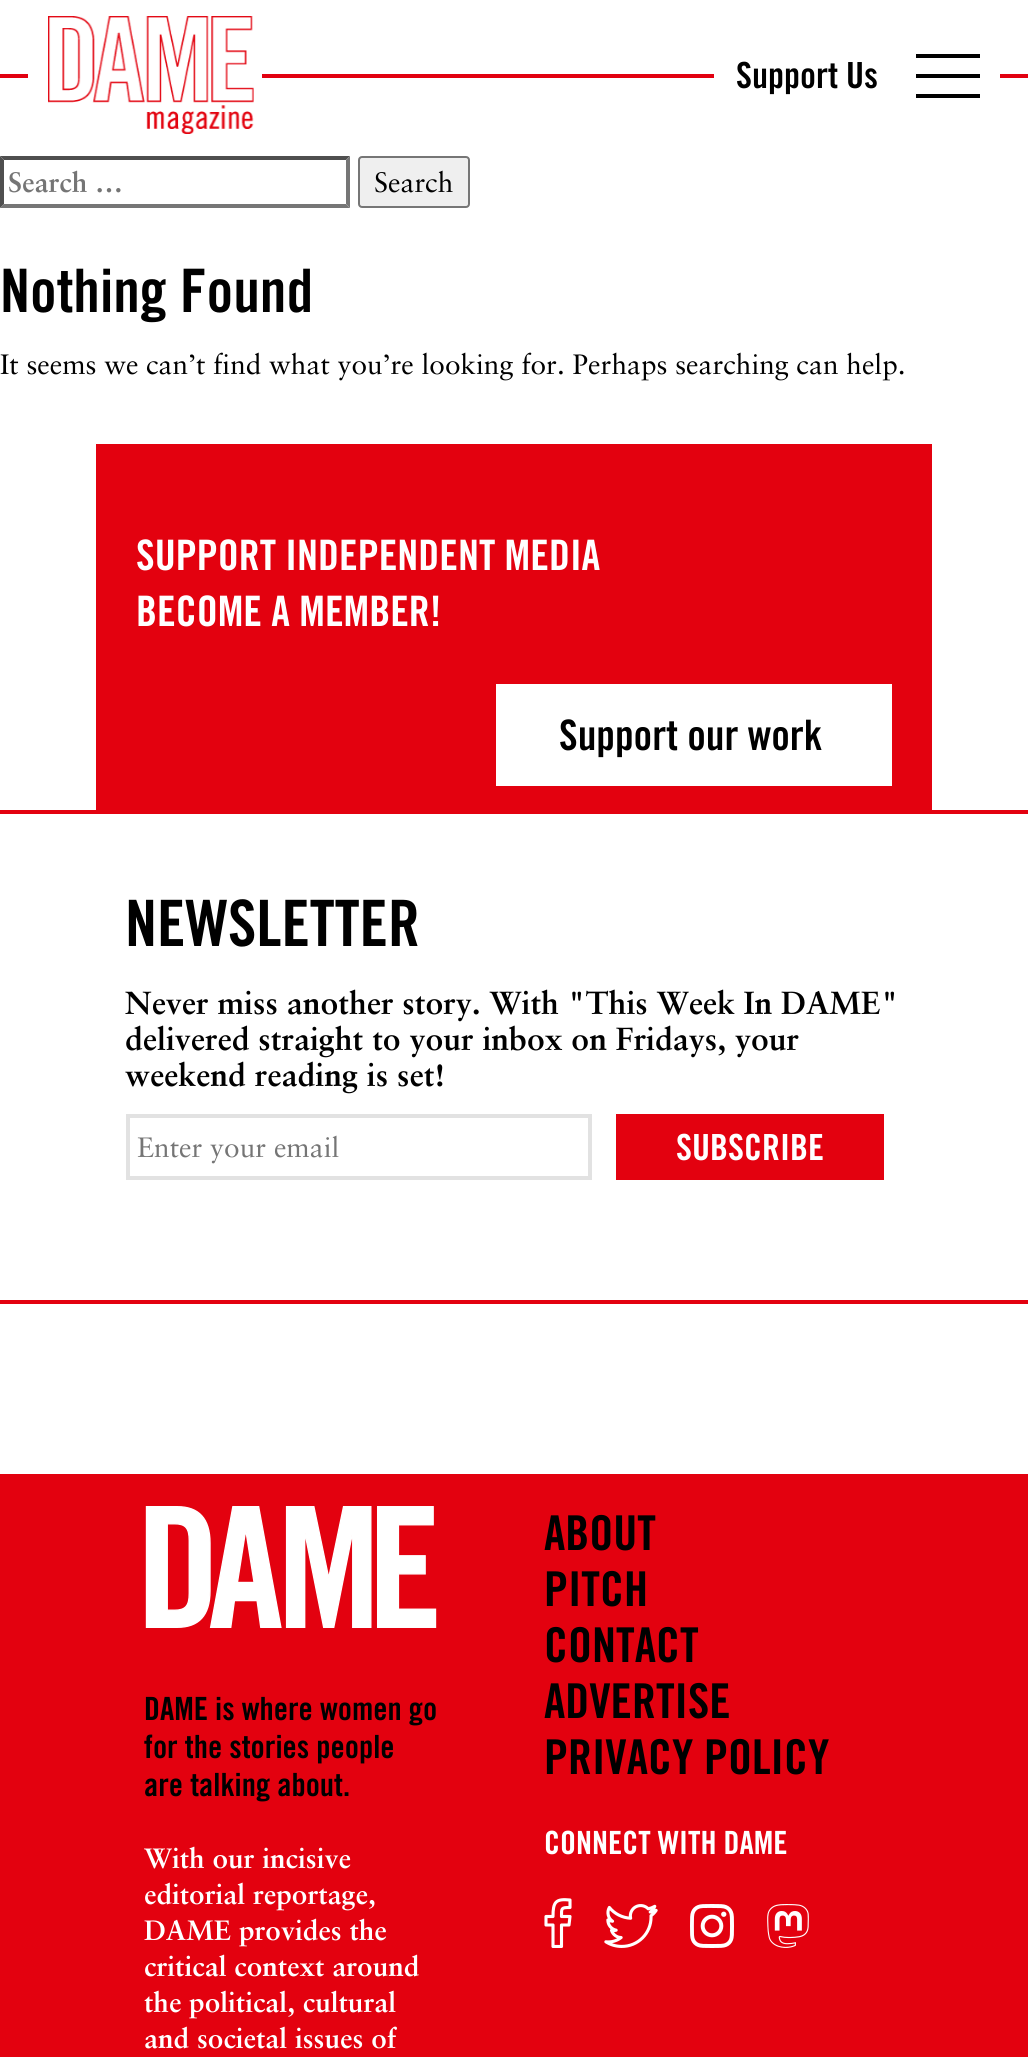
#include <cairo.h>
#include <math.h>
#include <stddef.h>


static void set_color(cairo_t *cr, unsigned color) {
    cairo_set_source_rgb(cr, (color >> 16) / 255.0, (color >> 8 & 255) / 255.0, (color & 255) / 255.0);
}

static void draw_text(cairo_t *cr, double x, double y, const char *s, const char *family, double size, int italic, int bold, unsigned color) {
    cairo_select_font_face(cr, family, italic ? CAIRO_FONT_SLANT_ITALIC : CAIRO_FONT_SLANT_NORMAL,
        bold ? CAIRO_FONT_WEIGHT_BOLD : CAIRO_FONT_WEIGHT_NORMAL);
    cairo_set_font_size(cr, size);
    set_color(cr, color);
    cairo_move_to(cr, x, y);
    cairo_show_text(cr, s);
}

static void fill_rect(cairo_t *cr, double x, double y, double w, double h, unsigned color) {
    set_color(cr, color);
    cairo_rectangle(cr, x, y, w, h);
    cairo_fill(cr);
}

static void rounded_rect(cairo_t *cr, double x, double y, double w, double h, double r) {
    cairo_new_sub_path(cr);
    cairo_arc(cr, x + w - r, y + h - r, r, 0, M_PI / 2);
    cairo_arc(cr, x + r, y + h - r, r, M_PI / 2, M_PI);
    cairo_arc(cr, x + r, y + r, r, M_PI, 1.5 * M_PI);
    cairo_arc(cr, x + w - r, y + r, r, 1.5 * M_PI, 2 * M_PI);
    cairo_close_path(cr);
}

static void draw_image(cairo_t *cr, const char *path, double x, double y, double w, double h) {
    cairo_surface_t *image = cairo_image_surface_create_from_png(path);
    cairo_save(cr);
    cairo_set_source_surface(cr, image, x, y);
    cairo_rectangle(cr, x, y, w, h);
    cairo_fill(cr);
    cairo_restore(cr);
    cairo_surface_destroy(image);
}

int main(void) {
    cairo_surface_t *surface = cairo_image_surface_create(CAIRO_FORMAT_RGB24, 1028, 2057);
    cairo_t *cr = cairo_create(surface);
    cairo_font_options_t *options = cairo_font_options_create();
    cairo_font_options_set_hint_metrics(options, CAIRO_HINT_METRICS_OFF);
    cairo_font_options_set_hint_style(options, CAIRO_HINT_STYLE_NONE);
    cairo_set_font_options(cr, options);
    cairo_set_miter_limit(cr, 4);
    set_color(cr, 0xFFFFFF);
    cairo_paint(cr);
    fill_rect(cr, 0, 74, 1028, 4, 0xE20010);
    fill_rect(cr, 28, 74, 234, 4, 0xFFFFFF);
    draw_image(cr, "assets/img1.png", 48, 16, 206, 118);
    fill_rect(cr, 714, 74, 286, 4, 0xFFFFFF);
    draw_text(cr, 736, 88, "Support Us", "Trade Gothic", 36, 0, 1, 0x000000);
    fill_rect(cr, 916, 94, 64, 4, 0x000000);
    fill_rect(cr, 916, 54, 64, 4, 0x000000);
    fill_rect(cr, 916, 74, 64, 4, 0x000000);
    set_color(cr, 0x4F4F4F);
    cairo_new_path(cr);
    cairo_move_to(cr, 0, 156);
    cairo_line_to(cr, 350, 156);
    cairo_line_to(cr, 346, 160);
    cairo_line_to(cr, 4, 160);
    cairo_close_path(cr);
    cairo_fill(cr);
    set_color(cr, 0x767676);
    cairo_new_path(cr);
    cairo_move_to(cr, 350, 156);
    cairo_line_to(cr, 350, 208);
    cairo_line_to(cr, 346, 204);
    cairo_line_to(cr, 346, 160);
    cairo_close_path(cr);
    cairo_fill(cr);
    cairo_new_path(cr);
    cairo_move_to(cr, 350, 208);
    cairo_line_to(cr, 0, 208);
    cairo_line_to(cr, 4, 204);
    cairo_line_to(cr, 346, 204);
    cairo_close_path(cr);
    cairo_fill(cr);
    set_color(cr, 0x4F4F4F);
    cairo_new_path(cr);
    cairo_move_to(cr, 0, 208);
    cairo_line_to(cr, 0, 156);
    cairo_line_to(cr, 4, 160);
    cairo_line_to(cr, 4, 204);
    cairo_close_path(cr);
    cairo_fill(cr);
    draw_text(cr, 8, 192, "Search …", "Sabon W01", 28, 0, 1, 0x757575);
    set_color(cr, 0xEFEFEF);
    rounded_rect(cr, 359, 157, 110, 50, 3);
    cairo_fill_preserve(cr);
    set_color(cr, 0x767676);
    cairo_stroke(cr);
    draw_text(cr, 374, 192, "Search", "Sabon W01", 28, 0, 0, 0x000000);
    draw_text(cr, 0, 312, "Nothing Found", "Trade Gothic", 60, 0, 1, 0x000000);
    draw_text(cr, 0, 374, "It seems we can’t find what you’re looking for. Perhaps searching can help.", "Sabon W01", 28, 0, 0, 0x000000);
    fill_rect(cr, 96, 444, 836, 366, 0xE3010F);
    draw_text(cr, 136, 570, "SUPPORT INDEPENDENT MEDIA", "Trade Gothic", 42, 0, 1, 0xFFFFFF);
    draw_text(cr, 136, 626, "BECOME A MEMBER!", "Trade Gothic", 42, 0, 1, 0xFFFFFF);
    fill_rect(cr, 496, 684, 396, 102, 0xFFFFFF);
    draw_text(cr, 559, 750, "Support our work", "Trade Gothic", 42, 0, 1, 0x000000);
    fill_rect(cr, 0, 810, 1028, 4, 0xE3010F);
    draw_text(cr, 125, 946, "NEWSLETTER", "Trade Gothic", 64, 0, 1, 0x000000);
    draw_text(cr, 125, 1014, "Never miss another story. With \"This Week In DAME\"", "Sabon W01", 32, 0, 1, 0x000000);
    draw_text(cr, 125, 1050, "delivered straight to your inbox on Fridays, your", "Sabon W01", 32, 0, 1, 0x000000);
    draw_text(cr, 125, 1086, "weekend reading is set!", "Sabon W01", 32, 0, 1, 0x000000);
    cairo_rectangle(cr, 128, 1116, 462, 62);
    set_color(cr, 0xE2E2E2);
    cairo_set_line_width(cr, 4);
    cairo_stroke(cr);
    draw_text(cr, 137, 1157, "Enter your email", "Sabon W01", 28, 0, 0, 0x757575);
    fill_rect(cr, 616, 1114, 268, 66, 0xE3010F);
    draw_text(cr, 676, 1160, "SUBSCRIBE", "Trade Gothic", 36, 0, 1, 0xFFFFFF);
    fill_rect(cr, 0, 1300, 1028, 4, 0xE3010F);
    fill_rect(cr, 0, 1474, 1028, 583, 0xE3010F);
    draw_image(cr, "assets/img2.png", 145, 1506, 292, 122);
    draw_text(cr, 144, 1720, "DAME is where women go", "Trade Gothic", 32, 0, 1, 0x000000);
    draw_text(cr, 144, 1758, "for the stories people", "Trade Gothic", 32, 0, 1, 0x000000);
    draw_text(cr, 144, 1796, "are talking about.", "Trade Gothic", 32, 0, 1, 0x000000);
    draw_text(cr, 144, 1868, "With our incisive", "Sabon W01", 28, 0, 1, 0xFFFFFF);
    draw_text(cr, 144, 1904, "editorial reportage,", "Sabon W01", 28, 0, 1, 0xFFFFFF);
    draw_text(cr, 144, 1940, "DAME provides the", "Sabon W01", 28, 0, 1, 0xFFFFFF);
    draw_text(cr, 144, 1976, "critical context around", "Sabon W01", 28, 0, 1, 0xFFFFFF);
    draw_text(cr, 144, 2012, "the political, cultural", "Sabon W01", 28, 0, 1, 0xFFFFFF);
    draw_text(cr, 144, 2048, "and societal issues of", "Sabon W01", 28, 0, 1, 0xFFFFFF);
    draw_text(cr, 544, 1550, "ABOUT", "Trade Gothic", 48, 0, 1, 0x000000);
    draw_text(cr, 544, 1606, "PITCH", "Trade Gothic", 48, 0, 1, 0x000000);
    draw_text(cr, 544, 1662, "CONTACT", "Trade Gothic", 48, 0, 1, 0x000000);
    draw_text(cr, 544, 1718, "ADVERTISE", "Trade Gothic", 48, 0, 1, 0x000000);
    draw_text(cr, 544, 1774, "PRIVACY POLICY", "Trade Gothic", 48, 0, 1, 0x000000);
    draw_text(cr, 544, 1854, "CONNECT WITH DAME", "Trade Gothic", 32, 0, 1, 0xFFFFFF);
    cairo_save(cr);
    cairo_rectangle(cr, 544, 1898, 28, 50);
    cairo_clip(cr);
    cairo_new_path(cr);
    cairo_move_to(cr, 569, 1925);
    cairo_line_to(cr, 570, 1916.5);
    cairo_line_to(cr, 561.5, 1916.5);
    cairo_curve_to(cr, 561.5, 1908, 561, 1907.5, 570, 1907.5);
    cairo_line_to(cr, 570, 1900);
    cairo_curve_to(cr, 555.5, 1898.5, 553, 1902, 553, 1916.5);
    cairo_line_to(cr, 546, 1916.5);
    cairo_line_to(cr, 546, 1925);
    cairo_line_to(cr, 553, 1925);
    cairo_line_to(cr, 553, 1946.5);
    cairo_line_to(cr, 561.5, 1946.5);
    cairo_line_to(cr, 561.5, 1925);
    cairo_close_path(cr);
    cairo_set_line_width(cr, 3.1);
    cairo_set_line_cap(cr, CAIRO_LINE_CAP_ROUND);
    cairo_set_line_join(cr, CAIRO_LINE_JOIN_ROUND);
    cairo_stroke(cr);
    cairo_restore(cr);
    draw_image(cr, "assets/img3.png", 604, 1904, 54, 44);
    draw_image(cr, "assets/img4.png", 690, 1904, 44, 44);
    draw_image(cr, "assets/img5.png", 767, 1904, 42, 44);
    cairo_surface_write_to_png(surface, "output.png");
    cairo_font_options_destroy(options);
    cairo_destroy(cr);
    cairo_surface_destroy(surface);
    return 0;
}
